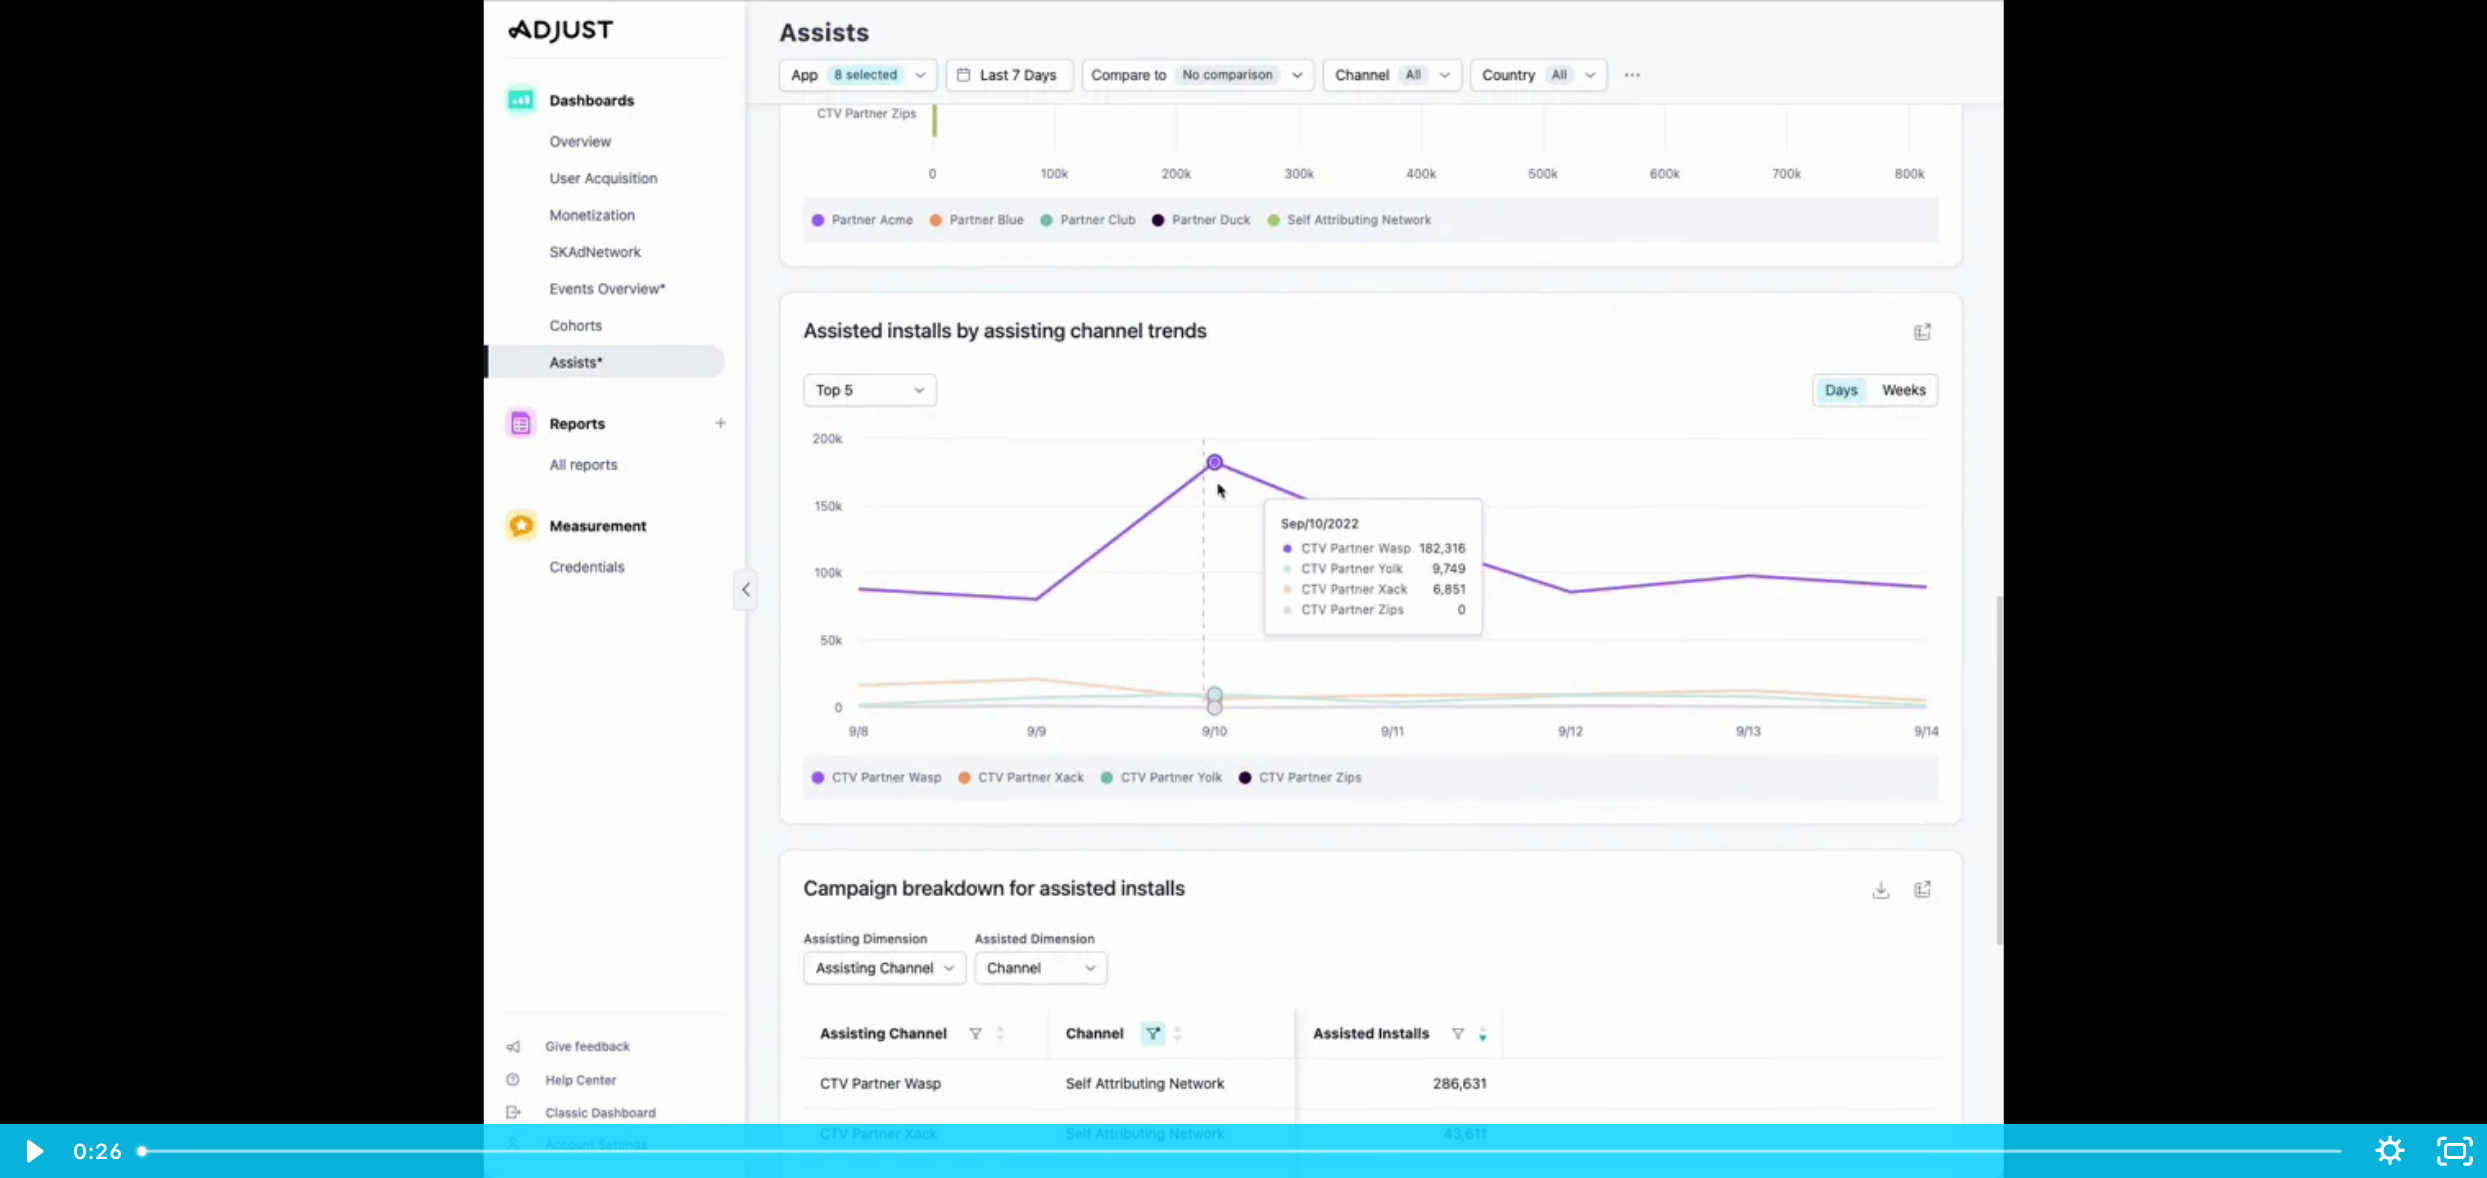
#include <cairo.h>
#include <math.h>
#include <stddef.h>


static void set_color(cairo_t *cr, unsigned color) {
    cairo_set_source_rgb(cr, (color >> 16) / 255.0, (color >> 8 & 255) / 255.0, (color & 255) / 255.0);
}

static void draw_spaced(cairo_t *cr, double x, double y, const char *s, double letter, double word) {
    cairo_move_to(cr, x, y);
    while (*s) {
        char ch[5] = {0};
        int n = 0;
        do ch[n++] = *s++; while ((*s & 0xC0) == 0x80);
        cairo_show_text(cr, ch);
        cairo_rel_move_to(cr, letter + word * (*ch == ' '), 0);
    }
}

static void draw_image(cairo_t *cr, const char *path, double x, double y, double w, double h) {
    cairo_surface_t *image = cairo_image_surface_create_from_png(path);
    cairo_save(cr);
    cairo_set_source_surface(cr, image, x, y);
    cairo_rectangle(cr, x, y, w, h);
    cairo_fill(cr);
    cairo_restore(cr);
    cairo_surface_destroy(image);
}

int main(void) {
    cairo_surface_t *surface = cairo_image_surface_create(CAIRO_FORMAT_RGB24, 2487, 1178);
    cairo_t *cr = cairo_create(surface);
    cairo_font_options_t *options = cairo_font_options_create();
    cairo_font_options_set_hint_metrics(options, CAIRO_HINT_METRICS_OFF);
    cairo_font_options_set_hint_style(options, CAIRO_HINT_STYLE_NONE);
    cairo_set_font_options(cr, options);
    cairo_set_miter_limit(cr, 4);
    set_color(cr, 0x000000);
    cairo_paint(cr);
    draw_image(cr, "assets/img5.png", 483, 0, 1521, 1178);
    cairo_set_source_rgba(cr, 0.031, 0.82, 1, 0.85);
    cairo_rectangle(cr, 0, 1124, 2487, 54);
    cairo_fill(cr);
    draw_image(cr, "assets/img1.png", 26, 1139, 18, 24);
    cairo_select_font_face(cr, "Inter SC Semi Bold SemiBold", CAIRO_FONT_SLANT_NORMAL, CAIRO_FONT_WEIGHT_NORMAL);
    cairo_set_font_size(cr, 21);
    set_color(cr, 0xFFFFFF);
    draw_spaced(cr, 73, 1159, "0:26", 1, 0);
    draw_image(cr, "assets/img2.png", 133, 1142, 2210, 18);
    draw_image(cr, "assets/img3.png", 2375, 1135, 30, 30);
    draw_image(cr, "assets/img4.png", 2437, 1136, 36, 30);
    cairo_surface_write_to_png(surface, "output.png");
    cairo_font_options_destroy(options);
    cairo_destroy(cr);
    cairo_surface_destroy(surface);
    return 0;
}
